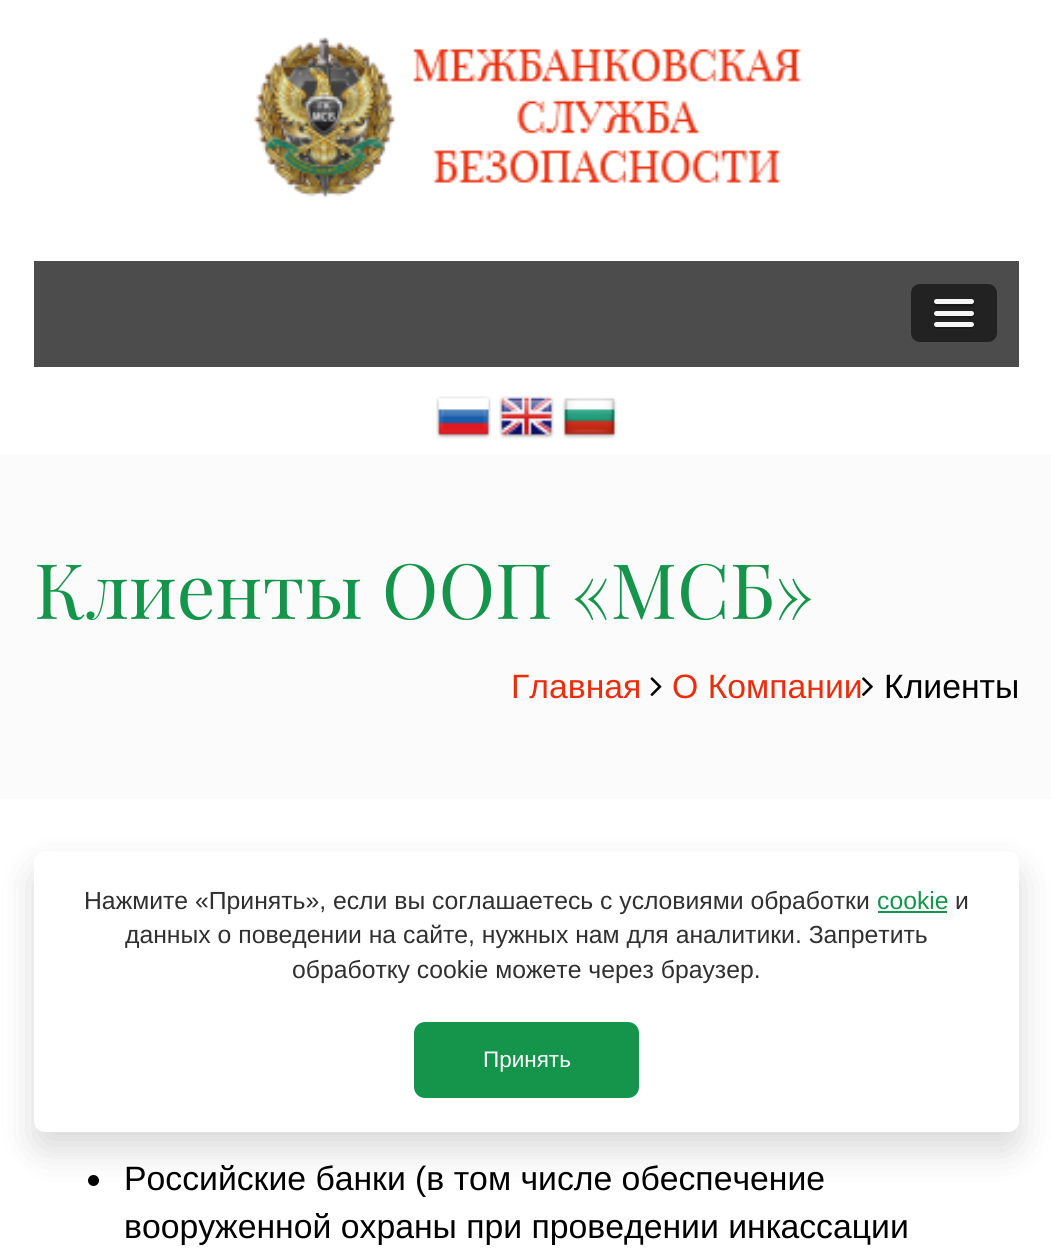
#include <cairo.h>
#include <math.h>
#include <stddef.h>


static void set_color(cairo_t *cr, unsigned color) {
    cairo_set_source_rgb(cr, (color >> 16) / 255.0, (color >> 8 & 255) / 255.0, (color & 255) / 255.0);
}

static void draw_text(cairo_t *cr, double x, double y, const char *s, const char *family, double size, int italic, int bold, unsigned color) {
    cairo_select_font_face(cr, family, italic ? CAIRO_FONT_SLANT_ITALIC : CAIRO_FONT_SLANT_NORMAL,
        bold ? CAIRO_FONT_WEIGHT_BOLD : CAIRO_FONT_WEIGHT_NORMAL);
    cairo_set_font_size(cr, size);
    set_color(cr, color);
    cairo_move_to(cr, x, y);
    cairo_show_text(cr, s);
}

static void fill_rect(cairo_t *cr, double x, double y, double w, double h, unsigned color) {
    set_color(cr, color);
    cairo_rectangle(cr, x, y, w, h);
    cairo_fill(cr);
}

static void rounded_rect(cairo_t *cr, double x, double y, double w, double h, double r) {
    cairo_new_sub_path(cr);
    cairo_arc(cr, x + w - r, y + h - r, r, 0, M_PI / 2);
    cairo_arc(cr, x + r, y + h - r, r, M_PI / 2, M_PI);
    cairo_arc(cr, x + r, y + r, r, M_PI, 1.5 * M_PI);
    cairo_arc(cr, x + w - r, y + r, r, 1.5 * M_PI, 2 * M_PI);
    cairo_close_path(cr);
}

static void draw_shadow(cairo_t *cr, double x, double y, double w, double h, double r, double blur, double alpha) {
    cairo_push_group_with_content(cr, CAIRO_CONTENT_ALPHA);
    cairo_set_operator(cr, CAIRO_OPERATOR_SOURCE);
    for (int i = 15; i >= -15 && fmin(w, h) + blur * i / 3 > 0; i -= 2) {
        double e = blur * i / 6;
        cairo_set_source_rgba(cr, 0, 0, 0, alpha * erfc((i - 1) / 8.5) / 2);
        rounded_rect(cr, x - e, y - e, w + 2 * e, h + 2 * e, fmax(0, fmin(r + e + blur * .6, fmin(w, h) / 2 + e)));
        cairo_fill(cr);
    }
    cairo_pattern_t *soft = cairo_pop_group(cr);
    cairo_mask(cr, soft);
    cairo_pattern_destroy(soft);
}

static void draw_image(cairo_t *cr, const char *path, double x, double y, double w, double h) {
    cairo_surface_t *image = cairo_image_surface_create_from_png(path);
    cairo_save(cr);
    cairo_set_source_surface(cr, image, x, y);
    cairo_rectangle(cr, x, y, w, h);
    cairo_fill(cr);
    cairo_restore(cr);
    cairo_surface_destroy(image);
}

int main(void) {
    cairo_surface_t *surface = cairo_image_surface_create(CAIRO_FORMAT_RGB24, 1051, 1256);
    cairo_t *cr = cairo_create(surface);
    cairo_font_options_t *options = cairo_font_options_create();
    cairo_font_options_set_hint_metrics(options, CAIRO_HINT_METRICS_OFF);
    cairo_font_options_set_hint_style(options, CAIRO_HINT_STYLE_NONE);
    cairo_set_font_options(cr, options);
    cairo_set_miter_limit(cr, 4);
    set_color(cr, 0xFFFFFF);
    cairo_paint(cr);
    draw_image(cr, "assets/img1.png", 253, 37, 549, 162);
    fill_rect(cr, 34, 261, 985, 106, 0x4C4C4C);
    set_color(cr, 0x222222);
    rounded_rect(cr, 911, 284, 86, 58, 9);
    cairo_fill(cr);
    set_color(cr, 0x1A1A1A);
    cairo_new_path(cr);
    cairo_move_to(cr, 934, 303);
    cairo_curve_to(cr, 931, 308, 942, 307, 942, 307);
    cairo_line_to(cr, 966, 307);
    cairo_curve_to(cr, 966, 307, 977, 308, 974, 303);
    cairo_curve_to(cr, 972, 304, 936, 304, 934, 303);
    cairo_close_path(cr);
    cairo_fill(cr);
    set_color(cr, 0xF5F5F5);
    rounded_rect(cr, 934, 299, 40, 5, 2.5);
    cairo_fill(cr);
    set_color(cr, 0x1A1A1A);
    cairo_new_path(cr);
    cairo_move_to(cr, 934, 314);
    cairo_curve_to(cr, 932, 319, 942, 318, 942, 318);
    cairo_line_to(cr, 966, 318);
    cairo_curve_to(cr, 966, 318, 976, 319, 974, 314);
    cairo_curve_to(cr, 972, 316, 936, 316, 934, 314);
    cairo_close_path(cr);
    cairo_fill(cr);
    set_color(cr, 0xF5F5F5);
    rounded_rect(cr, 934, 311, 40, 5, 2.5);
    cairo_fill(cr);
    set_color(cr, 0x1A1A1A);
    cairo_new_path(cr);
    cairo_move_to(cr, 934, 325);
    cairo_curve_to(cr, 932, 330, 941, 329, 942, 329);
    cairo_line_to(cr, 966, 329);
    cairo_curve_to(cr, 967, 329, 976, 330, 974, 325);
    cairo_line_to(cr, 972, 326);
    cairo_line_to(cr, 936, 326);
    cairo_close_path(cr);
    cairo_fill(cr);
    set_color(cr, 0xF5F5F5);
    rounded_rect(cr, 934, 322, 40, 5, 2.5);
    cairo_fill(cr);
    draw_image(cr, "assets/img2.png", 436, 396, 55, 43);
    draw_image(cr, "assets/img3.png", 499, 396, 55, 43);
    draw_image(cr, "assets/img4.png", 562, 397, 55, 42);
    fill_rect(cr, 0, 455, 1051, 344, 0xFBFBFB);
    draw_text(cr, 34, 619, "Клиенты ООП «МСБ»", "Playfair Display", 76.5, 0, 0, 0x15944B);
    draw_text(cr, 511, 698, "Главная", "Liberation Sans", 33.75, 0, 0, 0xEA2E0D);
    draw_image(cr, "assets/img5.png", 650, 677, 12, 19);
    draw_text(cr, 672, 698, "О Компании", "Liberation Sans", 33.75, 0, 0, 0xEA2E0D);
    draw_image(cr, "assets/img6.png", 862, 677, 11, 19);
    draw_text(cr, 884, 698, "Клиенты", "Liberation Sans", 33.75, 0, 0, 0x000000);
    cairo_new_path(cr);
    cairo_arc(cr, 93.5, 1180.5, 5.5, 0, 2 * M_PI);
    cairo_fill(cr);
    draw_text(cr, 124, 1190, "Российские банки (в том числе обеспечение", "Liberation Sans", 33.75, 0, 0, 0x000000);
    draw_text(cr, 124, 1238, "вооруженной охраны при проведении инкассации", "Liberation Sans", 33.75, 0, 0, 0x000000);
    set_color(cr, 0x000000);
    draw_shadow(cr, 34, 869, 985, 281, 11, 18, 0.15);
    set_color(cr, 0xFFFFFF);
    rounded_rect(cr, 34, 851, 985, 281, 11);
    cairo_fill(cr);
    draw_text(cr, 84, 909, "Нажмите «Принять», если вы соглашаетесь с условиями обработки", "Liberation Sans", 24.75, 0, 0, 0x303030);
    draw_text(cr, 877, 909, "cookie", "Liberation Sans", 24.75, 0, 0, 0x15944B);
    fill_rect(cr, 878, 911, 69, 2, 0x15944B);
    draw_text(cr, 955, 909, "и", "Liberation Sans", 24.75, 0, 0, 0x303030);
    draw_text(cr, 125, 943, "данных о поведении на сайте, нужных нам для аналитики. Запретить", "Liberation Sans", 24.75, 0, 0, 0x303030);
    draw_text(cr, 292, 978, "обработку cookie можете через браузер.", "Liberation Sans", 24.75, 0, 0, 0x303030);
    set_color(cr, 0x15944B);
    rounded_rect(cr, 414, 1022, 225, 76, 11);
    cairo_fill(cr);
    draw_text(cr, 483, 1067, "Принять", "Liberation Sans", 22.5, 0, 0, 0xFFFFFF);
    cairo_surface_write_to_png(surface, "output.png");
    cairo_font_options_destroy(options);
    cairo_destroy(cr);
    cairo_surface_destroy(surface);
    return 0;
}
